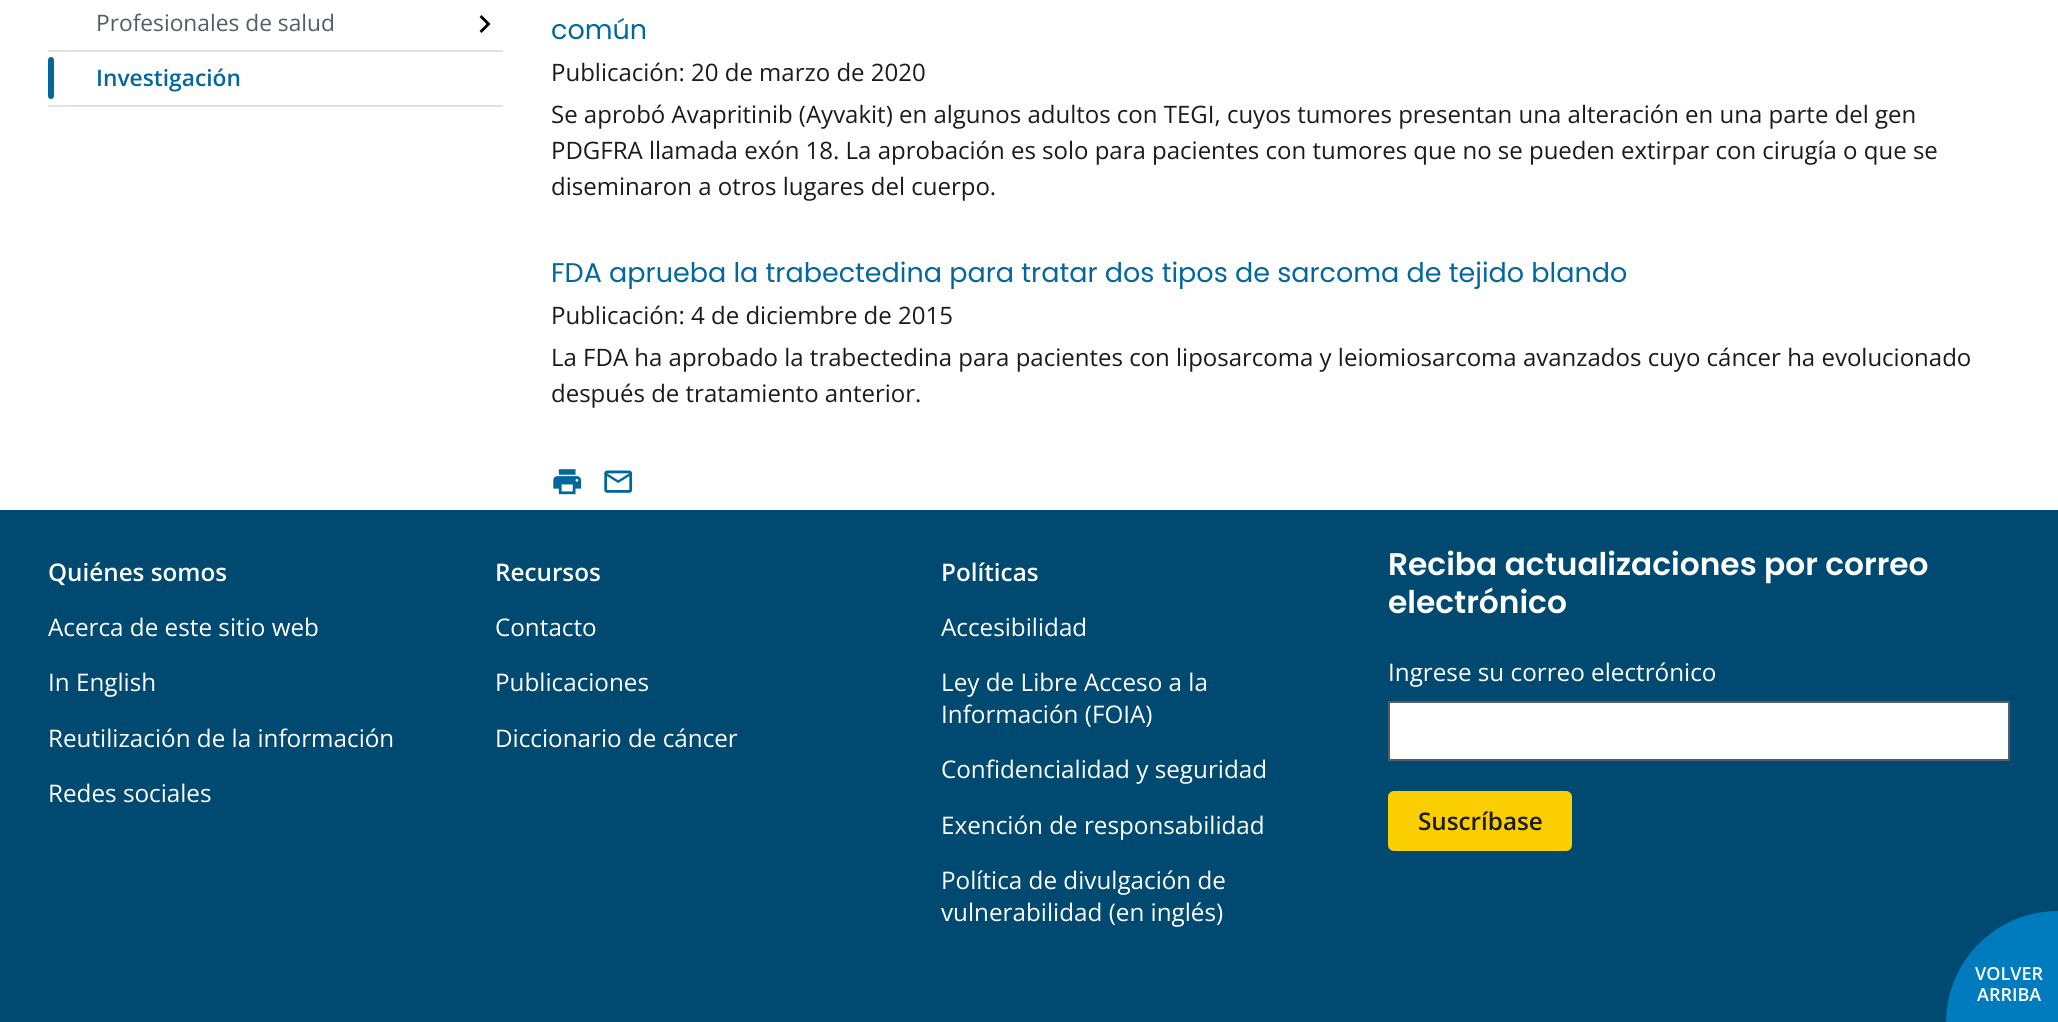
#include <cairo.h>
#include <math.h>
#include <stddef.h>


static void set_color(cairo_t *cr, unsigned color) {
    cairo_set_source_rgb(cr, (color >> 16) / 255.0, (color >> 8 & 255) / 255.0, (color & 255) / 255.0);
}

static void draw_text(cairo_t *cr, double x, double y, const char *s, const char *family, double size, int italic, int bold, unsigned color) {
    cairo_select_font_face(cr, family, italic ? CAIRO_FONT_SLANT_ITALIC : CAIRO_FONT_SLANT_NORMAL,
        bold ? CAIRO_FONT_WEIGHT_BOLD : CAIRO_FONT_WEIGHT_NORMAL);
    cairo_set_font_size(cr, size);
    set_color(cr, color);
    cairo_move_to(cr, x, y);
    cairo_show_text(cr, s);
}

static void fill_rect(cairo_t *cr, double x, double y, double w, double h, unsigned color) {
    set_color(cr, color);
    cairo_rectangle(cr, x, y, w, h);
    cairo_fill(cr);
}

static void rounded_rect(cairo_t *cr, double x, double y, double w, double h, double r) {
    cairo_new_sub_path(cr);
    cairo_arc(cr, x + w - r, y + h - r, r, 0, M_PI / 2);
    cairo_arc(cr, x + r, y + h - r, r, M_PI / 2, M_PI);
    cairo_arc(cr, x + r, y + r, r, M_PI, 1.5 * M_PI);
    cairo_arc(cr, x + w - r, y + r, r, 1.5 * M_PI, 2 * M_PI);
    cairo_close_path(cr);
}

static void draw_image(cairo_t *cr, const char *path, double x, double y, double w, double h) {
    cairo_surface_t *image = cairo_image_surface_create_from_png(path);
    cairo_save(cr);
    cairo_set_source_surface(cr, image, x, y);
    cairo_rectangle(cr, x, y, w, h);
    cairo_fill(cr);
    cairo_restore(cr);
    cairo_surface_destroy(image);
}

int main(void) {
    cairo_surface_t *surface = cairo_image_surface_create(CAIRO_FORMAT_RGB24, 2058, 1022);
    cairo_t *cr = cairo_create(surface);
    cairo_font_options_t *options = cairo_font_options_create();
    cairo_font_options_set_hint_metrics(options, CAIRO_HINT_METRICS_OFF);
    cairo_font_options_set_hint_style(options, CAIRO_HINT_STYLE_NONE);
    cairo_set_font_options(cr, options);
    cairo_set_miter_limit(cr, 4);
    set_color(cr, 0xFFFFFF);
    cairo_paint(cr);
    fill_rect(cr, 48, 105, 455, 2, 0xDFE1E2);
    draw_text(cr, 96, 31, "Profesionales de salud", "Open Sans", 22.75, 0, 0, 0x565C65);
    set_color(cr, 0x000000);
    cairo_new_path(cr);
    cairo_move_to(cr, 481.5, 15);
    cairo_line_to(cr, 479.5, 17);
    cairo_line_to(cr, 486.5, 24);
    cairo_line_to(cr, 479.5, 31);
    cairo_line_to(cr, 481.5, 33);
    cairo_line_to(cr, 490.5, 24);
    cairo_close_path(cr);
    cairo_fill(cr);
    fill_rect(cr, 48, 50, 455, 2, 0xDFE1E2);
    set_color(cr, 0x01679D);
    rounded_rect(cr, 48, 57, 6, 42, 3);
    cairo_fill(cr);
    draw_text(cr, 96, 86, "Investigación", "Open Sans SemiBold", 22.75, 0, 0, 0x01679D);
    draw_text(cr, 551, 39, "común", "Poppins", 27, 0, 0, 0x01679D);
    draw_text(cr, 551, 81, "Publicación: 20 de marzo de 2020", "Open Sans", 24, 0, 0, 0x1B1B1B);
    draw_text(cr, 551, 123, "Se aprobó Avapritinib (Ayvakit) en algunos adultos con TEGI, cuyos tumores presentan una alteración en una parte del gen", "Open Sans", 24, 0, 0, 0x1B1B1B);
    draw_text(cr, 551, 159, "PDGFRA llamada exón 18. La aprobación es solo para pacientes con tumores que no se pueden extirpar con cirugía o que se", "Open Sans", 24, 0, 0, 0x1B1B1B);
    draw_text(cr, 551, 195, "diseminaron a otros lugares del cuerpo.", "Open Sans", 24, 0, 0, 0x1B1B1B);
    draw_text(cr, 551, 282, "FDA aprueba la trabectedina para tratar dos tipos de sarcoma de tejido blando", "Poppins", 27, 0, 0, 0x01679D);
    draw_text(cr, 551, 324, "Publicación: 4 de diciembre de 2015", "Open Sans", 24, 0, 0, 0x1B1B1B);
    draw_text(cr, 551, 366, "La FDA ha aprobado la trabectedina para pacientes con liposarcoma y leiomiosarcoma avanzados cuyo cáncer ha evolucionado", "Open Sans", 24, 0, 0, 0x1B1B1B);
    draw_text(cr, 551, 402, "después de tratamiento anterior.", "Open Sans", 24, 0, 0, 0x1B1B1B);
    draw_image(cr, "assets/img1.png", 553, 469, 29, 26);
    draw_image(cr, "assets/img2.png", 604, 470, 29, 23);
    fill_rect(cr, 0, 510, 2058, 512, 0x004971);
    draw_text(cr, 48, 581, "Quiénes somos", "Open Sans SemiBold", 24.25, 0, 0, 0xFFFFFF);
    draw_text(cr, 48, 636, "Acerca de este sitio web", "Open Sans", 24.25, 0, 0, 0xFFFFFF);
    draw_text(cr, 48, 691, "In English", "Open Sans", 24.25, 0, 0, 0xFFFFFF);
    draw_text(cr, 48, 747, "Reutilización de la información", "Open Sans", 24.25, 0, 0, 0xFFFFFF);
    draw_text(cr, 48, 802, "Redes sociales", "Open Sans", 24.25, 0, 0, 0xFFFFFF);
    draw_text(cr, 495, 581, "Recursos", "Open Sans SemiBold", 24.25, 0, 0, 0xFFFFFF);
    draw_text(cr, 495, 636, "Contacto", "Open Sans", 24.25, 0, 0, 0xFFFFFF);
    draw_text(cr, 495, 691, "Publicaciones", "Open Sans", 24.25, 0, 0, 0xFFFFFF);
    draw_text(cr, 495, 747, "Diccionario de cáncer", "Open Sans", 24.25, 0, 0, 0xFFFFFF);
    draw_text(cr, 941, 581, "Políticas", "Open Sans SemiBold", 24.25, 0, 0, 0xFFFFFF);
    draw_text(cr, 941, 636, "Accesibilidad", "Open Sans", 24.25, 0, 0, 0xFFFFFF);
    draw_text(cr, 941, 691, "Ley de Libre Acceso a la", "Open Sans", 24.25, 0, 0, 0xFFFFFF);
    draw_text(cr, 941, 723, "Información (FOIA)", "Open Sans", 24.25, 0, 0, 0xFFFFFF);
    draw_text(cr, 941, 778, "Confidencialidad y seguridad", "Open Sans", 24.25, 0, 0, 0xFFFFFF);
    draw_text(cr, 941, 834, "Exención de responsabilidad", "Open Sans", 24.25, 0, 0, 0xFFFFFF);
    draw_text(cr, 941, 889, "Política de divulgación de", "Open Sans", 24.25, 0, 0, 0xFFFFFF);
    draw_text(cr, 941, 921, "vulnerabilidad (en inglés)", "Open Sans", 24.25, 0, 0, 0xFFFFFF);
    draw_text(cr, 1388, 575, "Reciba actualizaciones por correo", "Poppins SemiBold", 31.25, 0, 0, 0xFFFFFF);
    draw_text(cr, 1388, 613, "electrónico", "Poppins SemiBold", 31.25, 0, 0, 0xFFFFFF);
    draw_text(cr, 1388, 681, "Ingrese su correo electrónico", "Open Sans", 24.25, 0, 0, 0xFFFFFF);
    cairo_rectangle(cr, 1389, 702, 620, 58);
    cairo_fill_preserve(cr);
    set_color(cr, 0x565C65);
    cairo_stroke(cr);
    set_color(cr, 0xFACE00);
    rounded_rect(cr, 1388, 791, 184, 60, 6);
    cairo_fill(cr);
    draw_text(cr, 1418, 830, "Suscríbase", "Open Sans SemiBold", 24.25, 0, 0, 0x1B1B1B);
    set_color(cr, 0x007BBD);
    cairo_new_path(cr);
    cairo_move_to(cr, 2058, 911);
    cairo_line_to(cr, 2058, 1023);
    cairo_line_to(cr, 1946, 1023);
    cairo_curve_to(cr, 1946, 961, 1996, 911, 2058, 911);
    cairo_close_path(cr);
    cairo_fill(cr);
    draw_text(cr, 1975, 980, "VOLVER", "Open Sans SemiBold", 18, 0, 0, 0xFFFFFF);
    draw_text(cr, 1977, 1001, "ARRIBA", "Open Sans SemiBold", 18, 0, 0, 0xFFFFFF);
    cairo_surface_write_to_png(surface, "output.png");
    cairo_font_options_destroy(options);
    cairo_destroy(cr);
    cairo_surface_destroy(surface);
    return 0;
}
